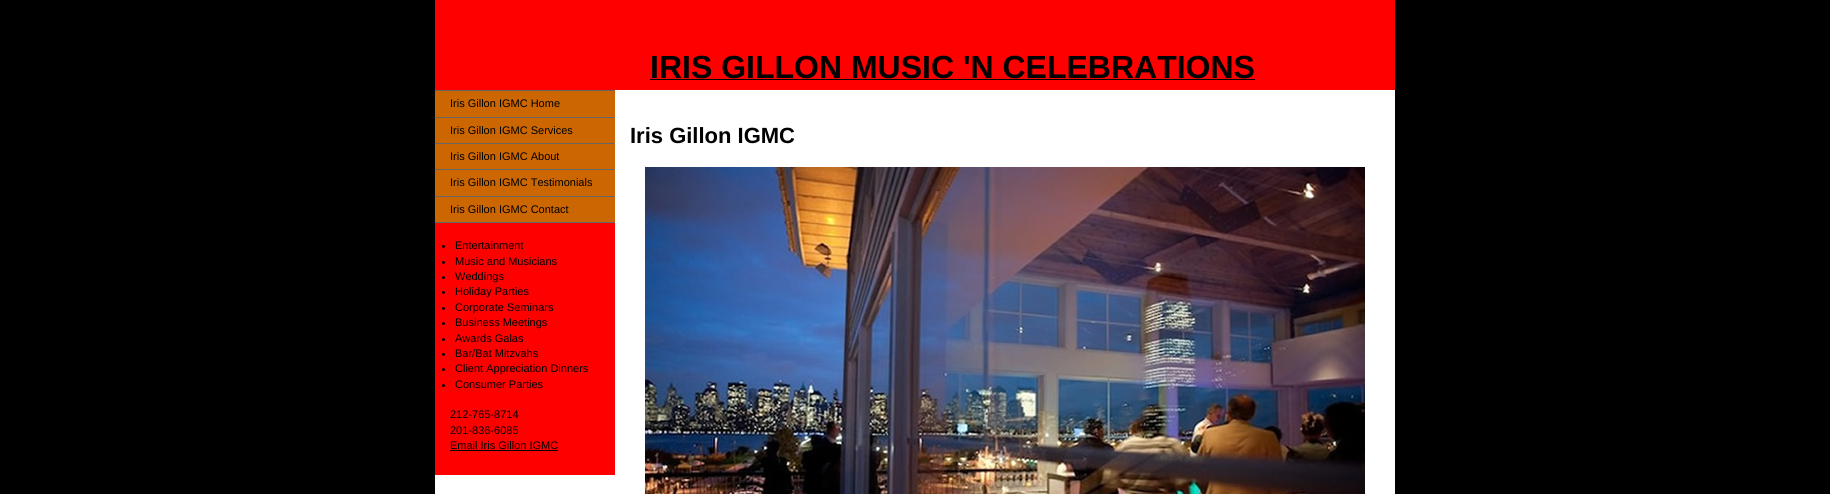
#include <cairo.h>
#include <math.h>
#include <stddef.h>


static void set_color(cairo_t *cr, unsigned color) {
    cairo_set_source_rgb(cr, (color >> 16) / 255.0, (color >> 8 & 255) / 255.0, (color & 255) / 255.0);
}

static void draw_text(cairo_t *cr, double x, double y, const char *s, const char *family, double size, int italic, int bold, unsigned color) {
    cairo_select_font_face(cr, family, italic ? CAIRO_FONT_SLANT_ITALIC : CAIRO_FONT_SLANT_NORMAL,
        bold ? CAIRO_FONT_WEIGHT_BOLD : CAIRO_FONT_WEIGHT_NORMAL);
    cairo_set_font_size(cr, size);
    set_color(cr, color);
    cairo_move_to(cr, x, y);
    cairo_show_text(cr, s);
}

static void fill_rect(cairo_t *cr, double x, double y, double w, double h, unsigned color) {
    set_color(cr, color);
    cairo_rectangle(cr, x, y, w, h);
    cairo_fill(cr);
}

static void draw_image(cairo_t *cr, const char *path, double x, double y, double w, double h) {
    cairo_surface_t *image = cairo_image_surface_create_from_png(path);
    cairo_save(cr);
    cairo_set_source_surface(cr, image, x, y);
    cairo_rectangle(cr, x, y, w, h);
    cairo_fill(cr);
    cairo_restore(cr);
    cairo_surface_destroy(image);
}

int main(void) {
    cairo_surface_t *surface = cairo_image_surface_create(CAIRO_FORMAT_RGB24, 1830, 494);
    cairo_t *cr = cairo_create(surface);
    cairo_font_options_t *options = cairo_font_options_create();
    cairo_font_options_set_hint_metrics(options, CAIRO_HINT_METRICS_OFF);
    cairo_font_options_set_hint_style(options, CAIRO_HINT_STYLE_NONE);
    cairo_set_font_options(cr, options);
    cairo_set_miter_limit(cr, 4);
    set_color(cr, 0x000000);
    cairo_paint(cr);
    fill_rect(cr, 435, 90, 960, 404, 0xFFFFFF);
    fill_rect(cr, 615, 0, 780, 90, 0xFF0000);
    fill_rect(cr, 435, 0, 180, 90, 0xFE0000);
    draw_text(cr, 650, 78, "IRIS GILLON MUSIC 'N CELEBRATIONS", "Liberation Sans", 32, 0, 1, 0x000000);
    fill_rect(cr, 650, 79, 605, 1, 0x000000);
    fill_rect(cr, 435, 223, 180, 252, 0xFF0000);
    fill_rect(cr, 435, 90, 180, 1, 0x666666);
    fill_rect(cr, 435, 117, 180, 1, 0x666666);
    fill_rect(cr, 435, 91, 180, 26, 0xCC6600);
    draw_text(cr, 450, 107, "Iris Gillon IGMC Home", "Liberation Sans", 11, 0, 0, 0x000000);
    fill_rect(cr, 435, 143, 180, 1, 0x666666);
    fill_rect(cr, 435, 118, 180, 25, 0xCC6600);
    draw_text(cr, 450, 134, "Iris Gillon IGMC Services", "Liberation Sans", 11, 0, 0, 0x000000);
    fill_rect(cr, 435, 169, 180, 1, 0x666666);
    fill_rect(cr, 435, 144, 180, 25, 0xCC6600);
    draw_text(cr, 450, 160, "Iris Gillon IGMC About", "Liberation Sans", 11, 0, 0, 0x000000);
    fill_rect(cr, 435, 196, 180, 1, 0x666666);
    fill_rect(cr, 435, 170, 180, 26, 0xCC6600);
    draw_text(cr, 450, 186, "Iris Gillon IGMC Testimonials", "Liberation Sans", 11, 0, 0, 0x000000);
    fill_rect(cr, 435, 222, 180, 1, 0x666666);
    fill_rect(cr, 435, 197, 180, 25, 0xCC6600);
    draw_text(cr, 450, 213, "Iris Gillon IGMC Contact", "Liberation Sans", 11, 0, 0, 0x000000);
    cairo_new_path(cr);
    cairo_arc(cr, 443.5, 246.5, 1.5, 0, 2 * M_PI);
    cairo_fill(cr);
    draw_text(cr, 455, 249, "Entertainment", "Liberation Sans", 11, 0, 0, 0x000000);
    cairo_new_path(cr);
    cairo_arc(cr, 443.5, 262.5, 1.5, 0, 2 * M_PI);
    cairo_fill(cr);
    draw_text(cr, 455, 265, "Music and Musicians", "Liberation Sans", 11, 0, 0, 0x000000);
    cairo_new_path(cr);
    cairo_arc(cr, 443.5, 277.5, 1.5, 0, 2 * M_PI);
    cairo_fill(cr);
    draw_text(cr, 455, 280, "Weddings", "Liberation Sans", 11, 0, 0, 0x000000);
    cairo_new_path(cr);
    cairo_arc(cr, 443.5, 292.5, 1.5, 0, 2 * M_PI);
    cairo_fill(cr);
    draw_text(cr, 455, 295, "Holiday Parties", "Liberation Sans", 11, 0, 0, 0x000000);
    cairo_new_path(cr);
    cairo_arc(cr, 443.5, 308.5, 1.5, 0, 2 * M_PI);
    cairo_fill(cr);
    draw_text(cr, 455, 311, "Corporate Seminars", "Liberation Sans", 11, 0, 0, 0x000000);
    cairo_new_path(cr);
    cairo_arc(cr, 443.5, 323.5, 1.5, 0, 2 * M_PI);
    cairo_fill(cr);
    draw_text(cr, 455, 326, "Business Meetings", "Liberation Sans", 11, 0, 0, 0x000000);
    cairo_new_path(cr);
    cairo_arc(cr, 443.5, 339.5, 1.5, 0, 2 * M_PI);
    cairo_fill(cr);
    draw_text(cr, 455, 342, "Awards Galas", "Liberation Sans", 11, 0, 0, 0x000000);
    cairo_new_path(cr);
    cairo_arc(cr, 443.5, 354.5, 1.5, 0, 2 * M_PI);
    cairo_fill(cr);
    draw_text(cr, 455, 357, "Bar/Bat Mitzvahs", "Liberation Sans", 11, 0, 0, 0x000000);
    cairo_new_path(cr);
    cairo_arc(cr, 443.5, 369.5, 1.5, 0, 2 * M_PI);
    cairo_fill(cr);
    draw_text(cr, 455, 372, "Client Appreciation Dinners", "Liberation Sans", 11, 0, 0, 0x000000);
    cairo_new_path(cr);
    cairo_arc(cr, 443.5, 385.5, 1.5, 0, 2 * M_PI);
    cairo_fill(cr);
    draw_text(cr, 455, 388, "Consumer Parties", "Liberation Sans", 11, 0, 0, 0x000000);
    draw_text(cr, 450, 418, "212-765-8714", "Liberation Sans", 11, 0, 0, 0x000000);
    draw_text(cr, 450, 434, "201-836-6085", "Liberation Sans", 11, 0, 0, 0x000000);
    draw_text(cr, 450, 449, "Email Iris Gillon IGMC", "Liberation Sans", 11, 0, 0, 0x000000);
    fill_rect(cr, 450, 450, 108, 1, 0x000000);
    draw_text(cr, 630, 143, "Iris Gillon IGMC", "Liberation Sans", 22, 0, 1, 0x000000);
    draw_image(cr, "assets/img1.png", 645, 167, 720, 327);
    cairo_surface_write_to_png(surface, "output.png");
    cairo_font_options_destroy(options);
    cairo_destroy(cr);
    cairo_surface_destroy(surface);
    return 0;
}
